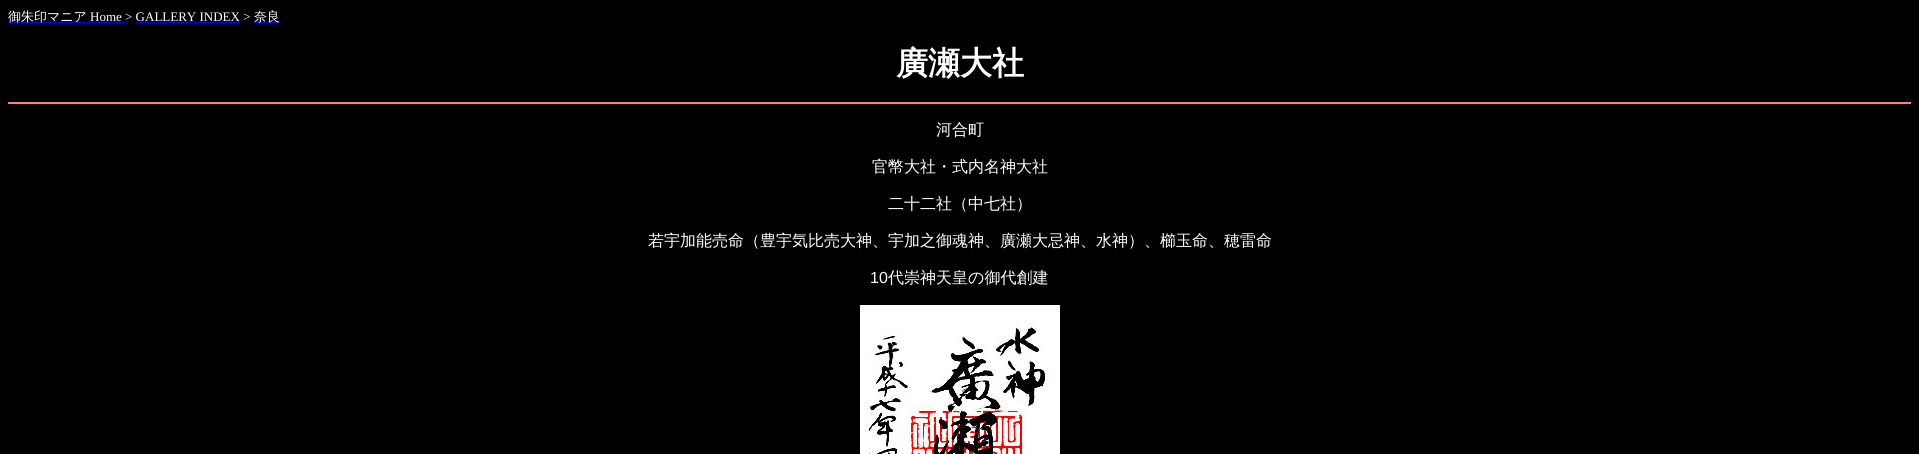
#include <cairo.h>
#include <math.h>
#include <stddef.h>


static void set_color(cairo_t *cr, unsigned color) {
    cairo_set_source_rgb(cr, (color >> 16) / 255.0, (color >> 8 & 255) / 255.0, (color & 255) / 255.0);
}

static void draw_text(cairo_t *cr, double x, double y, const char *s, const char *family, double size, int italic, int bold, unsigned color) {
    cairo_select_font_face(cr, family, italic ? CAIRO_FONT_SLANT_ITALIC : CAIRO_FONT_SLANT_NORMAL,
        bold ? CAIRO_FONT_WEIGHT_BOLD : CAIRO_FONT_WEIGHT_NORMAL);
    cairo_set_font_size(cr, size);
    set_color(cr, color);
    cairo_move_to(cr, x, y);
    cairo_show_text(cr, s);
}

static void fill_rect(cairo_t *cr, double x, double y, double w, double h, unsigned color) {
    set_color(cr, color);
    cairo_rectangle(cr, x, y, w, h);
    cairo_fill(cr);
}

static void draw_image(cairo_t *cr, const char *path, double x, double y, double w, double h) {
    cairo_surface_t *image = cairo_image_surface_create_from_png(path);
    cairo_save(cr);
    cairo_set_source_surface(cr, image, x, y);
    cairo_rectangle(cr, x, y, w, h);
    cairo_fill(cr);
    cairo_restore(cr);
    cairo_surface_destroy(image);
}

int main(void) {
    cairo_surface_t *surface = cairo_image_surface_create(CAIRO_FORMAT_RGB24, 1919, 454);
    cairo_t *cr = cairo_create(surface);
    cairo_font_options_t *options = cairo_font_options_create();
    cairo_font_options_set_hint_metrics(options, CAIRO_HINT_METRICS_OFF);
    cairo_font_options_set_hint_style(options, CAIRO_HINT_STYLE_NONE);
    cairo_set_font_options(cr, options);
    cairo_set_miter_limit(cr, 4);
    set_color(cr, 0x000000);
    cairo_paint(cr);
    fill_rect(cr, 8, 22, 117, 1, 0x0000EE);
    draw_text(cr, 8, 21, "御朱印マニア", "WenQuanYi Zen Hei Medium", 13, 0, 0, 0xFFFFFF);
    draw_text(cr, 90, 21, "Home > GALLERY INDEX >", "Liberation Serif", 13, 0, 0, 0xFFFFFF);
    fill_rect(cr, 136, 22, 104, 1, 0x0000EE);
    fill_rect(cr, 254, 22, 26, 1, 0x0000EE);
    draw_text(cr, 254, 21, "奈良", "WenQuanYi Zen Hei Medium", 13, 0, 0, 0xFFFFFF);
    draw_text(cr, 896, 74, "廣瀬大社", "WenQuanYi Zen Hei", 32, 0, 1, 0xFFFFFF);
    fill_rect(cr, 8, 102, 1903, 2, 0xFF8080);
    draw_text(cr, 936, 135, "河合町", "WenQuanYi Zen Hei Medium", 16, 0, 0, 0xFFFFFF);
    draw_text(cr, 872, 172, "官幣大社・式内名神大社", "WenQuanYi Zen Hei Medium", 16, 0, 0, 0xFFFFFF);
    draw_text(cr, 888, 209, "二十二社（中七社）", "WenQuanYi Zen Hei Medium", 16, 0, 0, 0xFFFFFF);
    draw_text(cr, 648, 246, "若宇加能売命（豊宇気比売大神、宇加之御魂神、廣瀬大忌神、水神）、櫛玉命、穂雷命", "WenQuanYi Zen Hei Medium", 16, 0, 0, 0xFFFFFF);
    draw_text(cr, 870, 283, "10", "Liberation Sans", 16, 0, 0, 0xFFFFFF);
    draw_text(cr, 888, 283, "代崇神天皇の御代創建", "WenQuanYi Zen Hei Medium", 16, 0, 0, 0xFFFFFF);
    draw_image(cr, "assets/img1.png", 860, 305, 200, 149);
    cairo_surface_write_to_png(surface, "output.png");
    cairo_font_options_destroy(options);
    cairo_destroy(cr);
    cairo_surface_destroy(surface);
    return 0;
}
